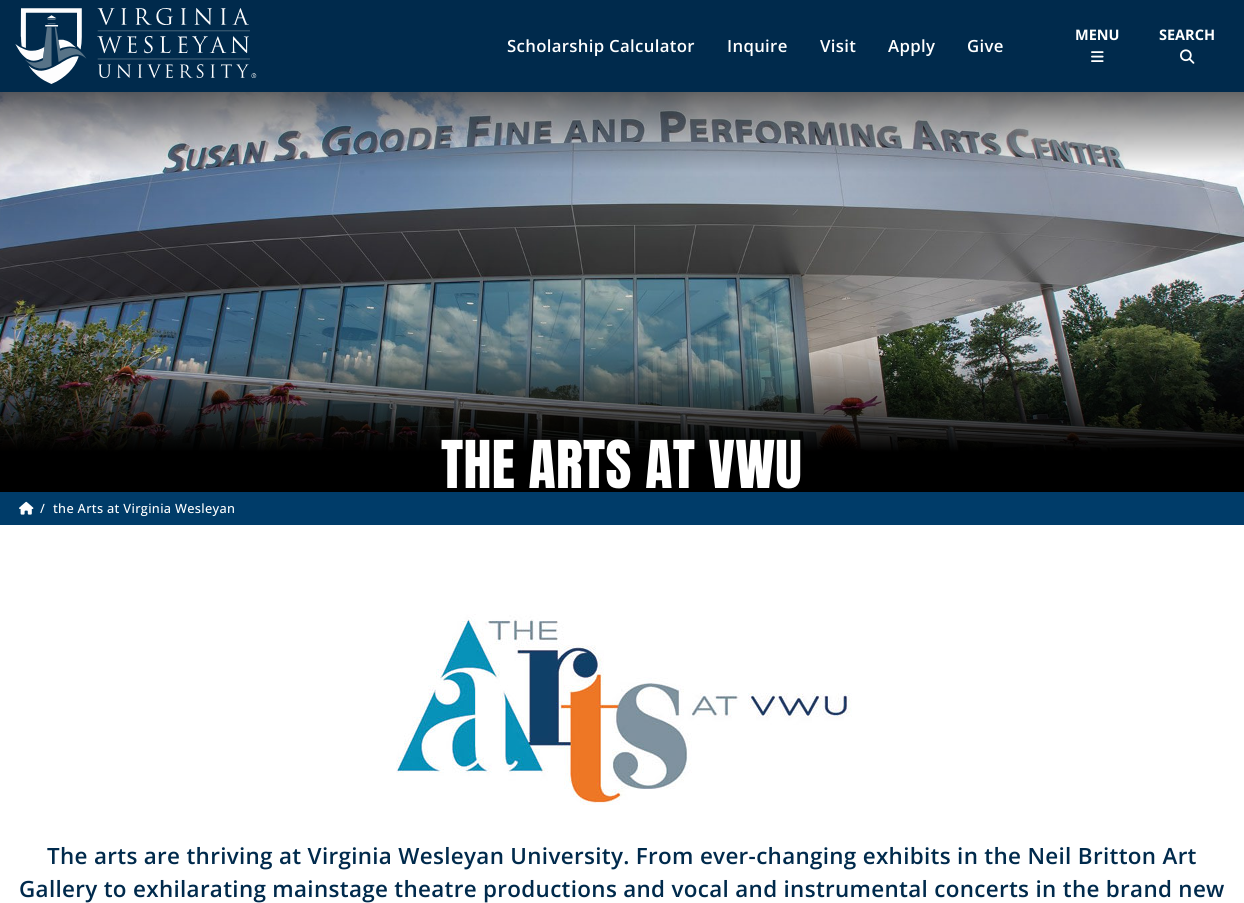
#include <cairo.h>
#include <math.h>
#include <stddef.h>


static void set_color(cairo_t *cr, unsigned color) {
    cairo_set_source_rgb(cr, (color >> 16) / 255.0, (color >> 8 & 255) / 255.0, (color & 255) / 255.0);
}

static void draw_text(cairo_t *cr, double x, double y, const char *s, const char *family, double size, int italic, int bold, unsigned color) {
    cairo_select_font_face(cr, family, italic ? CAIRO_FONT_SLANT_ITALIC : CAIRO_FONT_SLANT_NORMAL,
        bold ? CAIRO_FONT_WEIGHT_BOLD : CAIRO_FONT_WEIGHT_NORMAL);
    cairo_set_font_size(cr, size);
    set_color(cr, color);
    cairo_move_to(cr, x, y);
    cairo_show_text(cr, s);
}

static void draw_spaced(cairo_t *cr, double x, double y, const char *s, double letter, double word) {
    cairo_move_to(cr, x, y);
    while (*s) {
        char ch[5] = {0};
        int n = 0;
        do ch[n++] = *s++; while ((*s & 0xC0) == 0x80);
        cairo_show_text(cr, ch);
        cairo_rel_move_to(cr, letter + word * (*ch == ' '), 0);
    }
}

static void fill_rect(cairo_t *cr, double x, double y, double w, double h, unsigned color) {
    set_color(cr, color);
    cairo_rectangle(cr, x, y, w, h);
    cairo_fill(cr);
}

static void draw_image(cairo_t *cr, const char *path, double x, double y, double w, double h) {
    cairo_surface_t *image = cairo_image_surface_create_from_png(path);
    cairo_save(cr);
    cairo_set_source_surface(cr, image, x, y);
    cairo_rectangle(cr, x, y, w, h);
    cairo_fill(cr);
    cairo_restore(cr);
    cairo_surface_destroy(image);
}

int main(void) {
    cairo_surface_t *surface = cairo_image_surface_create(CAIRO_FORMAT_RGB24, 1244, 903);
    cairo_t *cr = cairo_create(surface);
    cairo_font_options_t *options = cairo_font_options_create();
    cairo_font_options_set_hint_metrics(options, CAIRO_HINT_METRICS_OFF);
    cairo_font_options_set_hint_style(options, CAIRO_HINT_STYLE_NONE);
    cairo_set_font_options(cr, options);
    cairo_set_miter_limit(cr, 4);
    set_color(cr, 0xFFFFFF);
    cairo_paint(cr);
    fill_rect(cr, 0, 0, 1244, 92, 0x002A4C);
    draw_image(cr, "assets/img1.png", 15, 8, 242, 76);
    draw_text(cr, 1075, 40, "MENU", "Open Sans", 14.5, 0, 1, 0xFFFFFF);
    draw_image(cr, "assets/img2.png", 1091, 51, 13, 11);
    draw_text(cr, 1159, 40, "SEARCH", "Open Sans", 14.5, 0, 1, 0xFFFFFF);
    draw_image(cr, "assets/img3.png", 1180, 49, 15, 15);
    cairo_select_font_face(cr, "Open Sans SemiBold", CAIRO_FONT_SLANT_NORMAL, CAIRO_FONT_WEIGHT_NORMAL);
    cairo_set_font_size(cr, 16.75);
    draw_spaced(cr, 507, 52, "Scholarship Calculator", 0.32, 0);
    draw_spaced(cr, 727, 52, "Inquire", 0.32, 0);
    draw_spaced(cr, 820, 52, "Visit", 0.32, 0);
    draw_spaced(cr, 888, 52, "Apply", 0.32, 0);
    draw_spaced(cr, 967, 52, "Give", 0.32, 0);
    draw_image(cr, "assets/img4.png", 0, 92, 1244, 400);
    cairo_select_font_face(cr, "Anton", CAIRO_FONT_SLANT_NORMAL, CAIRO_FONT_WEIGHT_NORMAL);
    cairo_set_font_size(cr, 56);
    draw_spaced(cr, 441, 488, "THE ARTS AT VWU", 0.32, 0);
    fill_rect(cr, 0, 492, 1244, 33, 0x003C69);
    draw_image(cr, "assets/img5.png", 19, 501, 15, 14);
    cairo_select_font_face(cr, "Open Sans Medium", CAIRO_FONT_SLANT_NORMAL, CAIRO_FONT_WEIGHT_NORMAL);
    cairo_set_font_size(cr, 12.75);
    set_color(cr, 0xFFFFFF);
    draw_spaced(cr, 40, 513, "/", 0.32, 0);
    draw_spaced(cr, 53, 513, "the Arts at Virginia Wesleyan", 0.32, 0);
    draw_image(cr, "assets/img6.png", 396, 614, 456, 191);
    cairo_select_font_face(cr, "Open Sans SemiBold", CAIRO_FONT_SLANT_NORMAL, CAIRO_FONT_WEIGHT_NORMAL);
    cairo_set_font_size(cr, 22.4);
    set_color(cr, 0x002A4C);
    draw_spaced(cr, 47, 864, "The arts are thriving at Virginia Wesleyan University. From ever-changing exhibits in the Neil Britton Art", 0.32, 0);
    draw_spaced(cr, 19, 897, "Gallery to exhilarating mainstage theatre productions and vocal and instrumental concerts in the brand new", 0.32, 0);
    cairo_surface_write_to_png(surface, "output.png");
    cairo_font_options_destroy(options);
    cairo_destroy(cr);
    cairo_surface_destroy(surface);
    return 0;
}
